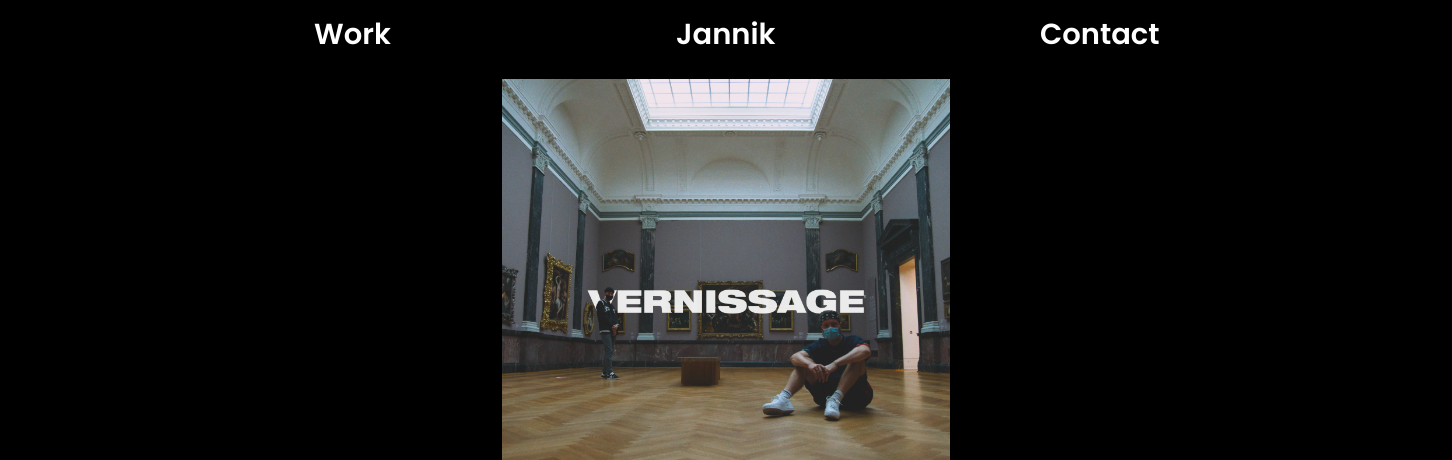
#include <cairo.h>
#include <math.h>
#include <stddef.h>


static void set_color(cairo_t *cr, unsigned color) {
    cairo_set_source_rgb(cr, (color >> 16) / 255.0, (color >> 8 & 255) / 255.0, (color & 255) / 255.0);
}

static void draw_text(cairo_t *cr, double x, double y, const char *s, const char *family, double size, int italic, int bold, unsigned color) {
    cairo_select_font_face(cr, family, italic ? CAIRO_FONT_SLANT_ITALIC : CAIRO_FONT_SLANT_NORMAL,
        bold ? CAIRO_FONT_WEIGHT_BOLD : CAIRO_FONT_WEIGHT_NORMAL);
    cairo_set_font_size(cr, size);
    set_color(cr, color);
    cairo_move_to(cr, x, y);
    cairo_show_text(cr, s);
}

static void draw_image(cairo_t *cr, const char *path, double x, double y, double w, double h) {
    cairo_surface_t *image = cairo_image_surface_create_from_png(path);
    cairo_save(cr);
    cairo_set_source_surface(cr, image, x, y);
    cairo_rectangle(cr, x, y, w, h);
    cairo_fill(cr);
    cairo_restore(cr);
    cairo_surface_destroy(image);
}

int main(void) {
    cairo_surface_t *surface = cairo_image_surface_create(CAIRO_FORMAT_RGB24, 1452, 460);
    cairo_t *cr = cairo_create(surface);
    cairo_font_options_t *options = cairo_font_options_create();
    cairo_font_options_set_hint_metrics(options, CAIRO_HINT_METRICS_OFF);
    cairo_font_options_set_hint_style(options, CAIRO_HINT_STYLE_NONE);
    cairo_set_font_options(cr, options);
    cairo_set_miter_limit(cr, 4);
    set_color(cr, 0x000000);
    cairo_paint(cr);
    draw_text(cr, 314, 44, "Work", "Poppins SemiBold", 29, 0, 0, 0xFFFFFF);
    draw_text(cr, 676, 44, "Jannik", "Poppins SemiBold", 29, 0, 0, 0xFFFFFF);
    draw_text(cr, 1040, 44, "Contact", "Poppins SemiBold", 29, 0, 0, 0xFFFFFF);
    draw_image(cr, "assets/img1.png", 502, 79, 448, 381);
    cairo_surface_write_to_png(surface, "output.png");
    cairo_font_options_destroy(options);
    cairo_destroy(cr);
    cairo_surface_destroy(surface);
    return 0;
}
